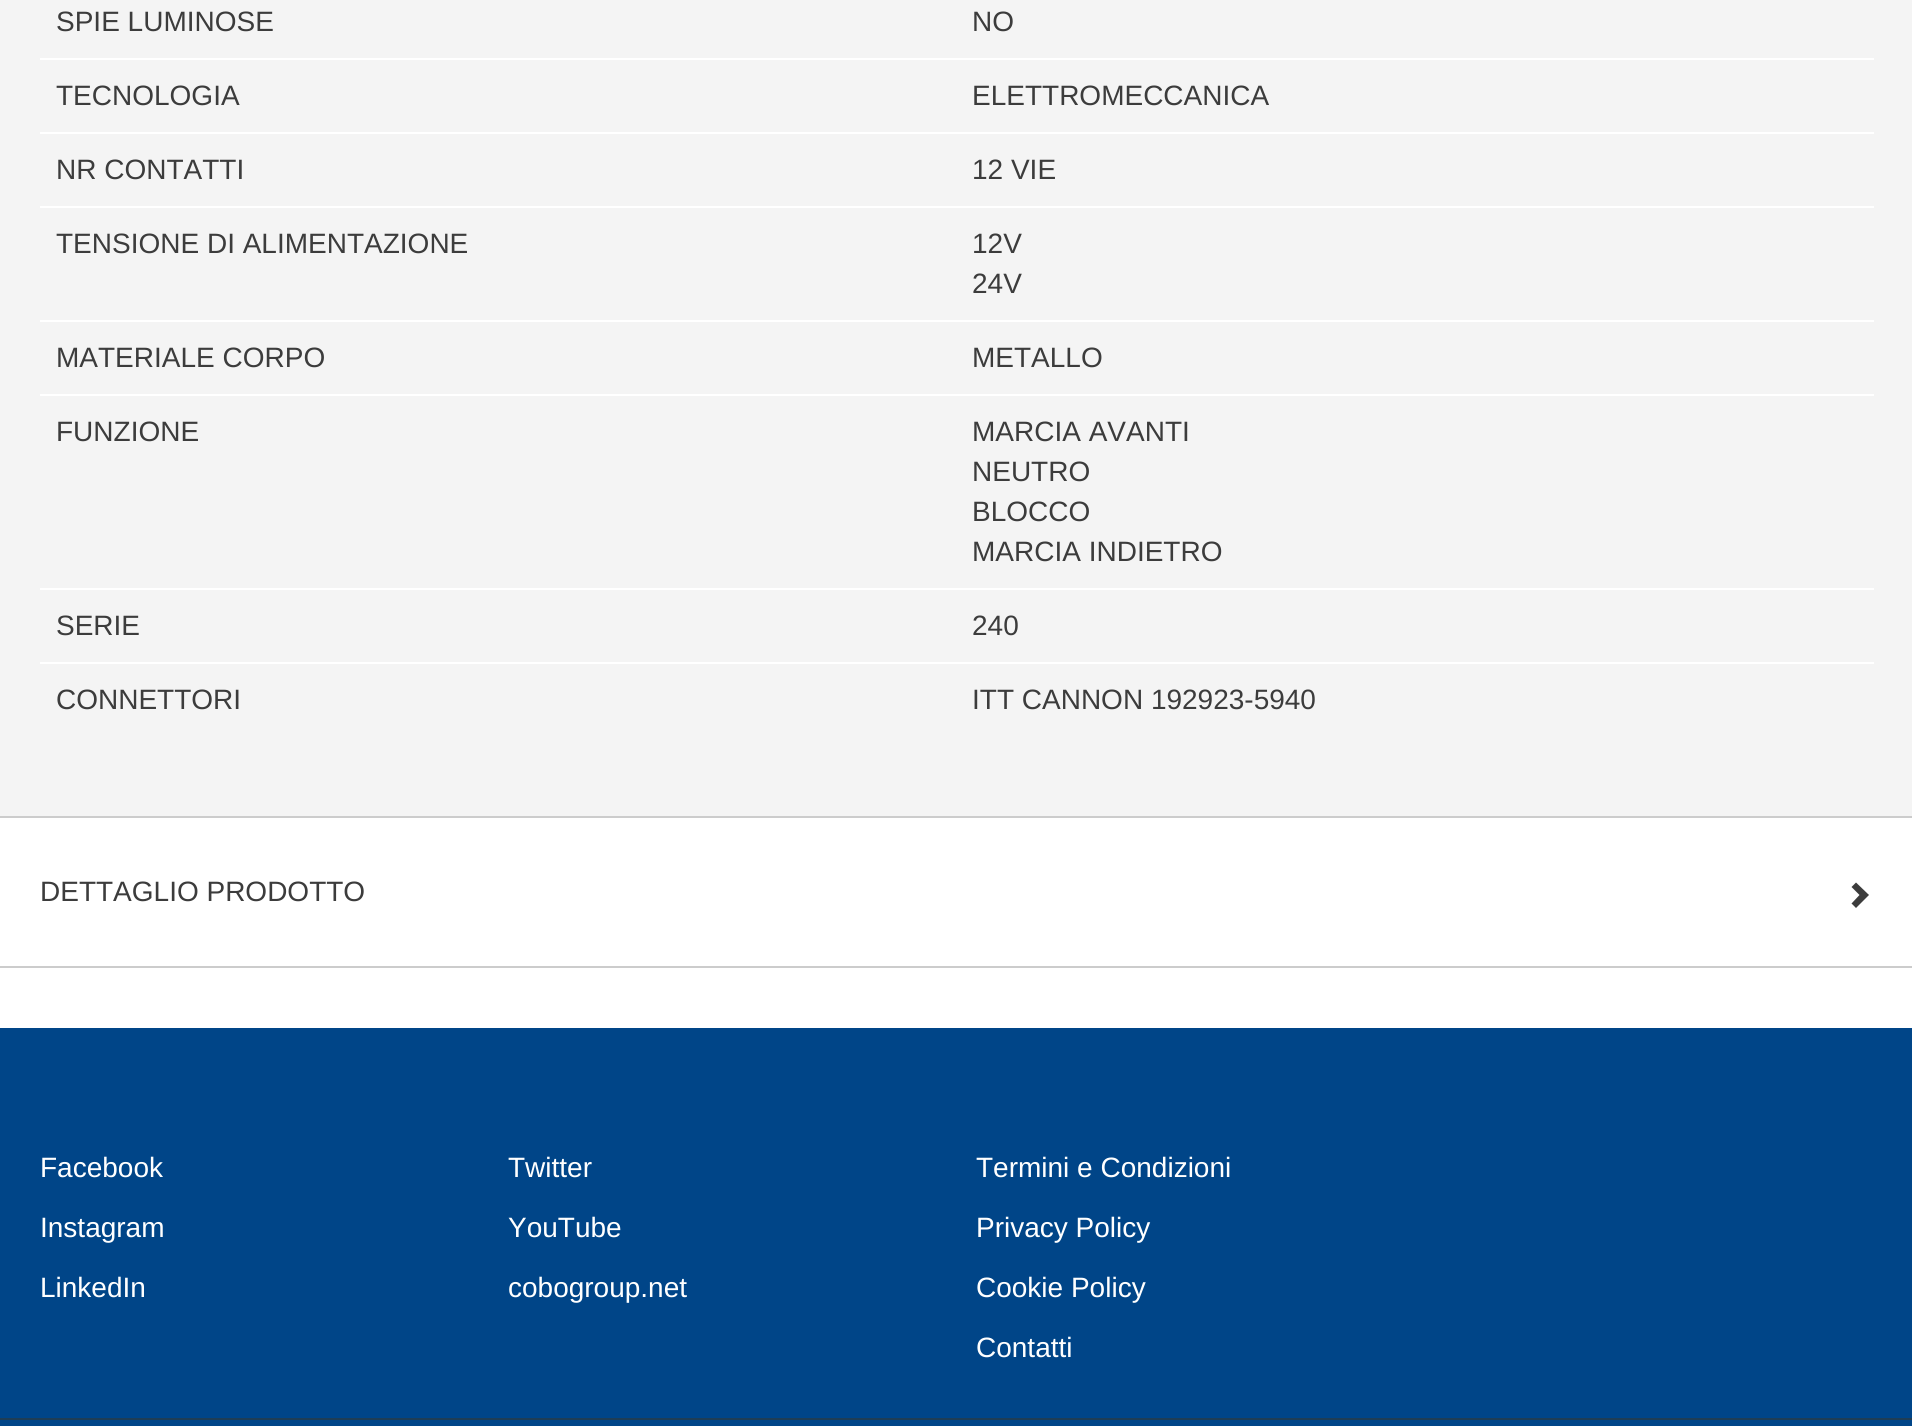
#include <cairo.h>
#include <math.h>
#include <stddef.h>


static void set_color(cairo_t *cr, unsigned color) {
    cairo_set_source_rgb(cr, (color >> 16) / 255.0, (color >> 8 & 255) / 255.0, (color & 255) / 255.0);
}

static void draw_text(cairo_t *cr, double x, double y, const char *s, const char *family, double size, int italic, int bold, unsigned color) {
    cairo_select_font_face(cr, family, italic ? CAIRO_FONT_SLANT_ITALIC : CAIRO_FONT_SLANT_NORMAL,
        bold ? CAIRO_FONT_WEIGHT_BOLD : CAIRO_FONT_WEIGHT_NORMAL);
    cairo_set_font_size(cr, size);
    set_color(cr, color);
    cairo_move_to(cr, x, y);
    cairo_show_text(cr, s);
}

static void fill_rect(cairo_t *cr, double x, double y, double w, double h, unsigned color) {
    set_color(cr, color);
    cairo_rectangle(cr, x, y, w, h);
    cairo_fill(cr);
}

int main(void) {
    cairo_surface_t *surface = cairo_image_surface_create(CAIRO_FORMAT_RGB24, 1912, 1426);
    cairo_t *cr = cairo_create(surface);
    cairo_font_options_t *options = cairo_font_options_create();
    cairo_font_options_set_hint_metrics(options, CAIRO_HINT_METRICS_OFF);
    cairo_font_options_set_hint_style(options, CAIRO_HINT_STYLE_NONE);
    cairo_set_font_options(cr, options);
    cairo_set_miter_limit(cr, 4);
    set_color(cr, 0xFFFFFF);
    cairo_paint(cr);
    fill_rect(cr, 0, 0, 1912, 816, 0xF4F4F4);
    fill_rect(cr, 0, 816, 1912, 2, 0xCCCCCC);
    draw_text(cr, 56, 31, "SPIE LUMINOSE", "Liberation Sans", 28, 0, 0, 0x3C3C3C);
    draw_text(cr, 972, 31, "NO", "Liberation Sans", 28, 0, 0, 0x3C3C3C);
    draw_text(cr, 56, 105, "TECNOLOGIA", "Liberation Sans", 28, 0, 0, 0x3C3C3C);
    fill_rect(cr, 40, 58, 1834, 2, 0xFFFFFF);
    draw_text(cr, 972, 105, "ELETTROMECCANICA", "Liberation Sans", 28, 0, 0, 0x3C3C3C);
    draw_text(cr, 56, 179, "NR CONTATTI", "Liberation Sans", 28, 0, 0, 0x3C3C3C);
    fill_rect(cr, 40, 132, 1834, 2, 0xFFFFFF);
    draw_text(cr, 972, 179, "12 VIE", "Liberation Sans", 28, 0, 0, 0x3C3C3C);
    draw_text(cr, 56, 253, "TENSIONE DI ALIMENTAZIONE", "Liberation Sans", 28, 0, 0, 0x3C3C3C);
    fill_rect(cr, 40, 206, 1834, 2, 0xFFFFFF);
    draw_text(cr, 972, 253, "12V", "Liberation Sans", 28, 0, 0, 0x3C3C3C);
    draw_text(cr, 972, 293, "24V", "Liberation Sans", 28, 0, 0, 0x3C3C3C);
    draw_text(cr, 56, 367, "MATERIALE CORPO", "Liberation Sans", 28, 0, 0, 0x3C3C3C);
    fill_rect(cr, 40, 320, 1834, 2, 0xFFFFFF);
    draw_text(cr, 972, 367, "METALLO", "Liberation Sans", 28, 0, 0, 0x3C3C3C);
    draw_text(cr, 56, 441, "FUNZIONE", "Liberation Sans", 28, 0, 0, 0x3C3C3C);
    fill_rect(cr, 40, 394, 1834, 2, 0xFFFFFF);
    draw_text(cr, 972, 441, "MARCIA AVANTI", "Liberation Sans", 28, 0, 0, 0x3C3C3C);
    draw_text(cr, 972, 481, "NEUTRO", "Liberation Sans", 28, 0, 0, 0x3C3C3C);
    draw_text(cr, 972, 521, "BLOCCO", "Liberation Sans", 28, 0, 0, 0x3C3C3C);
    draw_text(cr, 972, 561, "MARCIA INDIETRO", "Liberation Sans", 28, 0, 0, 0x3C3C3C);
    draw_text(cr, 56, 635, "SERIE", "Liberation Sans", 28, 0, 0, 0x3C3C3C);
    fill_rect(cr, 40, 588, 1834, 2, 0xFFFFFF);
    draw_text(cr, 972, 635, "240", "Liberation Sans", 28, 0, 0, 0x3C3C3C);
    draw_text(cr, 56, 709, "CONNETTORI", "Liberation Sans", 28, 0, 0, 0x3C3C3C);
    fill_rect(cr, 40, 662, 1834, 2, 0xFFFFFF);
    draw_text(cr, 972, 709, "ITT CANNON 192923-5940", "Liberation Sans", 28, 0, 0, 0x3C3C3C);
    fill_rect(cr, 0, 966, 1912, 2, 0xCCCCCC);
    draw_text(cr, 40, 901, "DETTAGLIO PRODOTTO", "Liberation Sans", 28, 0, 0, 0x3C3C3C);
    cairo_new_path(cr);
    cairo_move_to(cr, 1869, 895);
    cairo_line_to(cr, 1856, 908);
    cairo_line_to(cr, 1851.5, 903.5);
    cairo_line_to(cr, 1859.5, 895);
    cairo_line_to(cr, 1851.5, 887);
    cairo_line_to(cr, 1856, 882.5);
    cairo_close_path(cr);
    cairo_fill(cr);
    fill_rect(cr, 0, 1028, 1912, 398, 0x004588);
    draw_text(cr, 40, 1177, "Facebook", "Liberation Sans", 28, 0, 0, 0xFFFFFF);
    draw_text(cr, 40, 1237, "Instagram", "Liberation Sans", 28, 0, 0, 0xFFFFFF);
    draw_text(cr, 40, 1297, "LinkedIn", "Liberation Sans", 28, 0, 0, 0xFFFFFF);
    draw_text(cr, 508, 1177, "Twitter", "Liberation Sans", 28, 0, 0, 0xFFFFFF);
    draw_text(cr, 508, 1237, "YouTube", "Liberation Sans", 28, 0, 0, 0xFFFFFF);
    draw_text(cr, 508, 1297, "cobogroup.net", "Liberation Sans", 28, 0, 0, 0xFFFFFF);
    draw_text(cr, 976, 1177, "Termini e Condizioni", "Liberation Sans", 28, 0, 0, 0xFFFFFF);
    draw_text(cr, 976, 1237, "Privacy Policy", "Liberation Sans", 28, 0, 0, 0xFFFFFF);
    draw_text(cr, 976, 1297, "Cookie Policy", "Liberation Sans", 28, 0, 0, 0xFFFFFF);
    draw_text(cr, 976, 1357, "Contatti", "Liberation Sans", 28, 0, 0, 0xFFFFFF);
    fill_rect(cr, 0, 1418, 1912, 2, 0x1E3D55);
    cairo_surface_write_to_png(surface, "output.png");
    cairo_font_options_destroy(options);
    cairo_destroy(cr);
    cairo_surface_destroy(surface);
    return 0;
}
